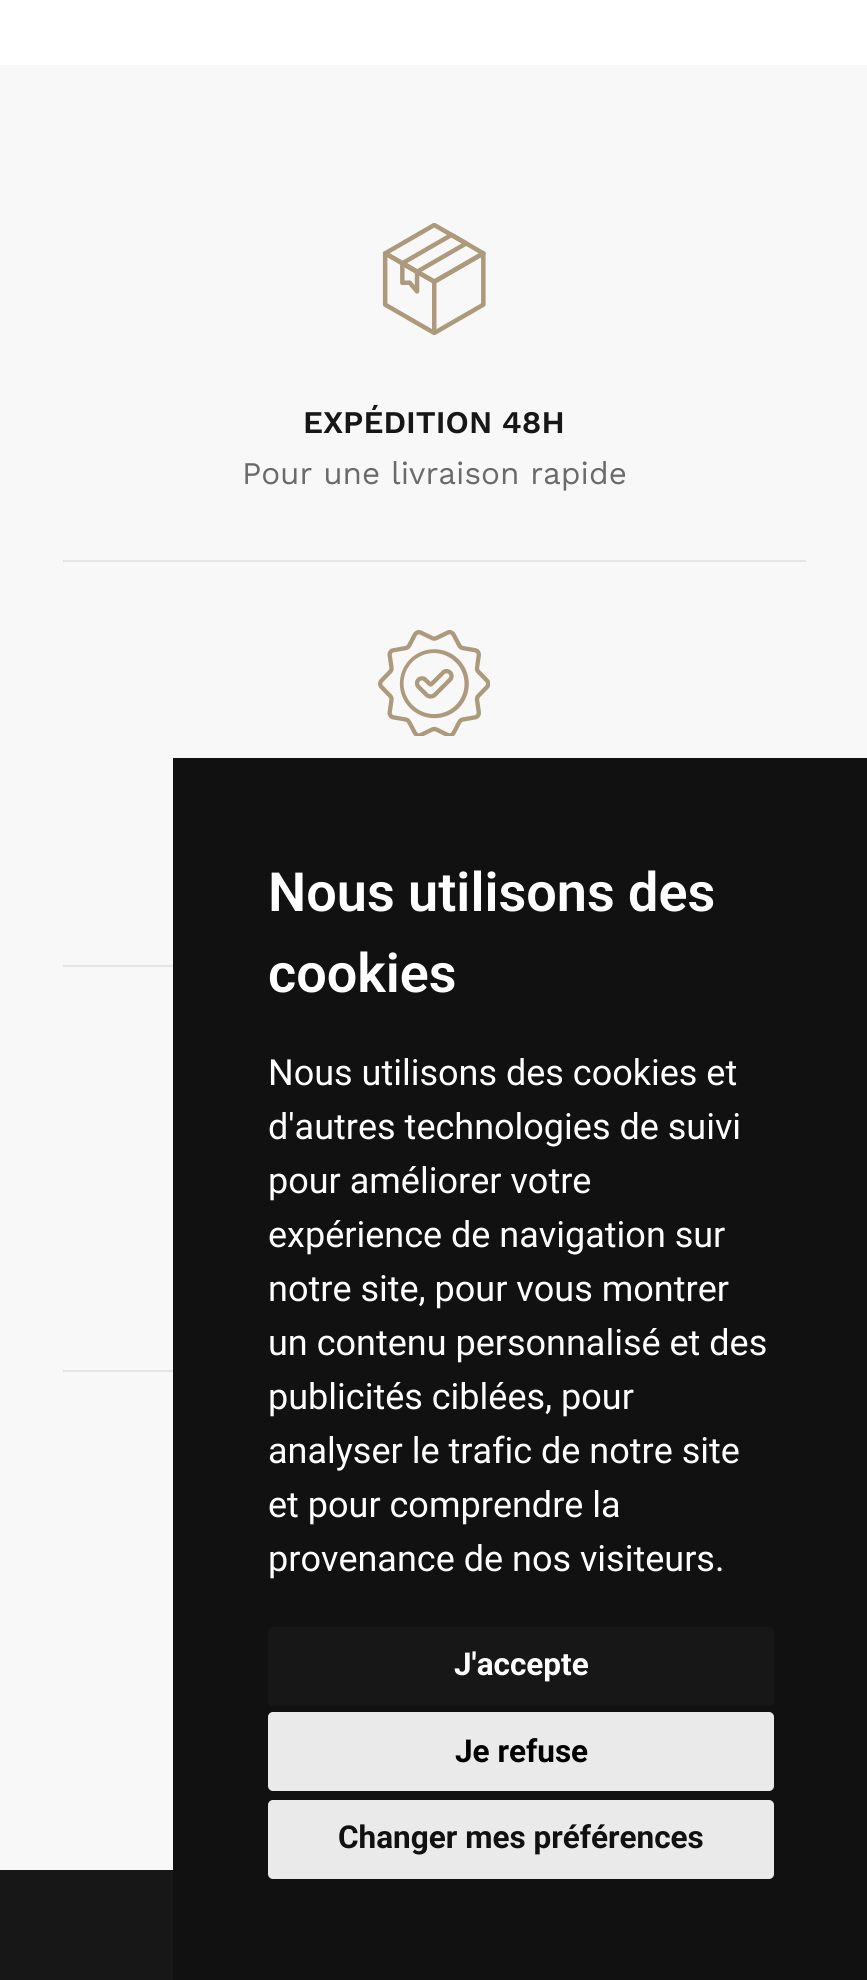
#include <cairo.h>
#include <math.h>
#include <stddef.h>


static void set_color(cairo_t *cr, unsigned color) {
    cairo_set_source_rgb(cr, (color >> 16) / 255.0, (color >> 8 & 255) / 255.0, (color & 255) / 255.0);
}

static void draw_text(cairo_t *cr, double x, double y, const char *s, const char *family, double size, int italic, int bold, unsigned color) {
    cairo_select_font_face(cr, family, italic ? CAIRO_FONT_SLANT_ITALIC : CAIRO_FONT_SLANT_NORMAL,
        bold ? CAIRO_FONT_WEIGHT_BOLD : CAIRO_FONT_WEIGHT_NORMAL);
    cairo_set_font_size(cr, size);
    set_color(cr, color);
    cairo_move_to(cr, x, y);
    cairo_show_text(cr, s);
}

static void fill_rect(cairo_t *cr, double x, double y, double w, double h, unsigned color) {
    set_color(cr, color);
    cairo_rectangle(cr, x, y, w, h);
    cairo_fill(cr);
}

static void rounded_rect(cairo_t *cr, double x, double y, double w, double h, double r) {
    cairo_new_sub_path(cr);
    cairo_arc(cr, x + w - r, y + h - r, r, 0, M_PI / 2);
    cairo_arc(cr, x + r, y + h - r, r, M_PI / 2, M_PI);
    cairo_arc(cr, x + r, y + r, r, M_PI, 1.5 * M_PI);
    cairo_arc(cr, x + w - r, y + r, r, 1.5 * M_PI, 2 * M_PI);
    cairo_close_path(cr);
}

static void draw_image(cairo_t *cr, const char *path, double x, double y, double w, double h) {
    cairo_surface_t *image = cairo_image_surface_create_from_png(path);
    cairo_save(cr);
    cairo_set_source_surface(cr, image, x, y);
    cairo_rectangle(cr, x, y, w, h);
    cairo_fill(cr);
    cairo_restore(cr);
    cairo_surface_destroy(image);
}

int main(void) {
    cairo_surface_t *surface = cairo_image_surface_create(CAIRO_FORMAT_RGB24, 867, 1980);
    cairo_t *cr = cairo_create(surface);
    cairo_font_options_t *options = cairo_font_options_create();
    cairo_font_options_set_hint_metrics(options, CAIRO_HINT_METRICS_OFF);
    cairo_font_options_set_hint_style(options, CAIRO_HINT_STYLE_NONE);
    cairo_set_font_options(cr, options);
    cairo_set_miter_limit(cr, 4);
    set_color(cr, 0xFFFFFF);
    cairo_paint(cr);
    fill_rect(cr, 0, 1870, 173, 110, 0x171717);
    fill_rect(cr, 0, 65, 867, 1805, 0xF8F8F8);
    fill_rect(cr, 63, 560, 743, 2, 0xE5E5E5);
    draw_image(cr, "assets/img1.png", 382, 223, 104, 112);
    draw_text(cr, 303, 433, "EXPÉDITION 48H", "Work Sans SemiBold", 31.5, 0, 0, 0x171717);
    draw_text(cr, 242, 484, "Pour une livraison rapide", "Work Sans", 31.5, 0, 0, 0x6A6A6A);
    fill_rect(cr, 63, 965, 110, 2, 0xE5E5E5);
    draw_image(cr, "assets/img2.png", 378, 630, 112, 106);
    fill_rect(cr, 63, 1370, 110, 2, 0xE5E5E5);
    fill_rect(cr, 173, 758, 694, 1222, 0x111111);
    draw_text(cr, 268, 911, "Nous utilisons des", "Roboto SemiBold", 54, 0, 0, 0xFFFFFF);
    draw_text(cr, 268, 992, "cookies", "Roboto SemiBold", 54, 0, 0, 0xFFFFFF);
    draw_text(cr, 268, 1085, "Nous utilisons des cookies et", "Roboto", 36, 0, 0, 0xFFFFFF);
    draw_text(cr, 268, 1139, "d'autres technologies de suivi", "Roboto", 36, 0, 0, 0xFFFFFF);
    draw_text(cr, 268, 1193, "pour améliorer votre", "Roboto", 36, 0, 0, 0xFFFFFF);
    draw_text(cr, 268, 1247, "expérience de navigation sur", "Roboto", 36, 0, 0, 0xFFFFFF);
    draw_text(cr, 268, 1301, "notre site, pour vous montrer", "Roboto", 36, 0, 0, 0xFFFFFF);
    draw_text(cr, 268, 1355, "un contenu personnalisé et des", "Roboto", 36, 0, 0, 0xFFFFFF);
    draw_text(cr, 268, 1409, "publicités ciblées, pour", "Roboto", 36, 0, 0, 0xFFFFFF);
    draw_text(cr, 268, 1463, "analyser le trafic de notre site", "Roboto", 36, 0, 0, 0xFFFFFF);
    draw_text(cr, 268, 1517, "et pour comprendre la", "Roboto", 36, 0, 0, 0xFFFFFF);
    draw_text(cr, 268, 1571, "provenance de nos visiteurs.", "Roboto", 36, 0, 0, 0xFFFFFF);
    set_color(cr, 0x171717);
    rounded_rect(cr, 268, 1627, 506, 79, 5);
    cairo_fill(cr);
    draw_text(cr, 454, 1675, "J'accepte", "Roboto", 31.5, 0, 1, 0xFFFFFF);
    set_color(cr, 0xEAEAEA);
    rounded_rect(cr, 268, 1712, 506, 79, 5);
    cairo_fill(cr);
    draw_text(cr, 455, 1762, "Je refuse", "Roboto", 31.5, 0, 1, 0x000000);
    set_color(cr, 0xEAEAEA);
    rounded_rect(cr, 268, 1800, 506, 79, 5);
    cairo_fill(cr);
    draw_text(cr, 338, 1848, "Changer mes préférences", "Roboto", 31.5, 0, 1, 0x111111);
    cairo_surface_write_to_png(surface, "output.png");
    cairo_font_options_destroy(options);
    cairo_destroy(cr);
    cairo_surface_destroy(surface);
    return 0;
}
